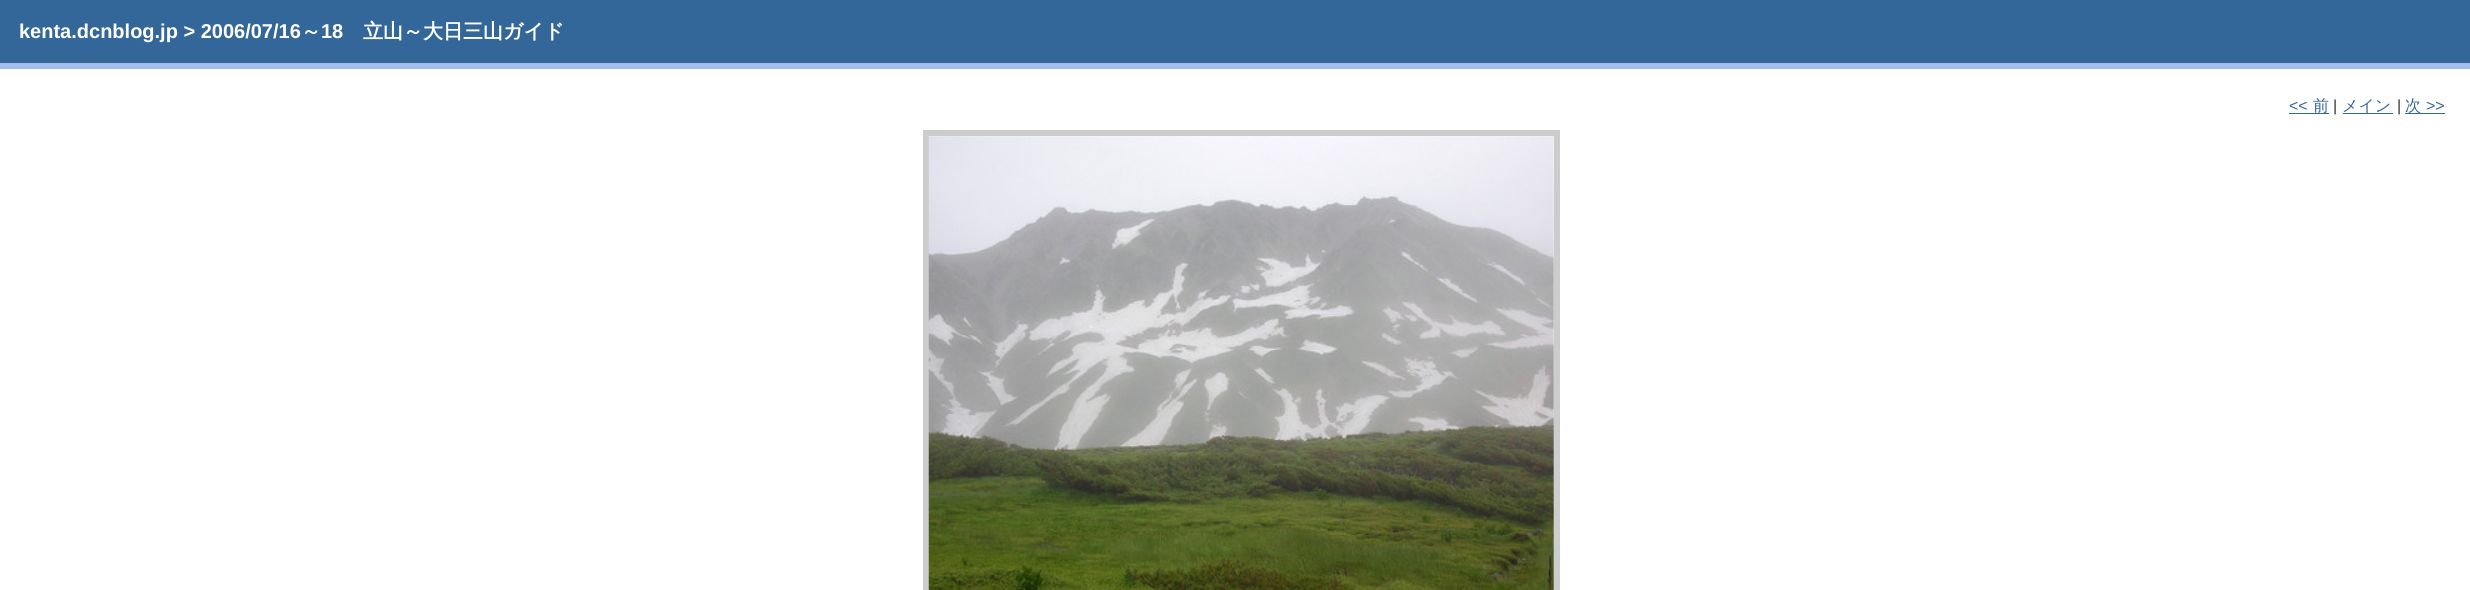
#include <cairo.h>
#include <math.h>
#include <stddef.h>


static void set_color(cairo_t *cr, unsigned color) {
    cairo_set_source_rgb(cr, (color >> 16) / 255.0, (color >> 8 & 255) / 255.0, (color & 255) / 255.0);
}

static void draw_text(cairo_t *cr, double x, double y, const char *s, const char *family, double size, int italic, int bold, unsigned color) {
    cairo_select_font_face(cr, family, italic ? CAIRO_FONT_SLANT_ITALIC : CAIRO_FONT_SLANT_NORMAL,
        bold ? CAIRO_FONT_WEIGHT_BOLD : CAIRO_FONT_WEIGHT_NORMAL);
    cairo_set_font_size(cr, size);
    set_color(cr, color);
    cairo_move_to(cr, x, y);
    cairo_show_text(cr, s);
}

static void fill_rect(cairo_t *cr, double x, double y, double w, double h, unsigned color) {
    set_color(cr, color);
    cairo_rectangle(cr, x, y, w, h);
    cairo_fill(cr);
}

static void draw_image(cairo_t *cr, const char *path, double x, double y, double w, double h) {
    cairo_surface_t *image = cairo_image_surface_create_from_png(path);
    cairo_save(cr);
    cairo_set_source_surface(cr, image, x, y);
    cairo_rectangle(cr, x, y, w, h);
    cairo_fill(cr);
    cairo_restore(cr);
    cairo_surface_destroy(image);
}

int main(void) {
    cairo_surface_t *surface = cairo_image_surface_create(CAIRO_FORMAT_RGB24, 2470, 590);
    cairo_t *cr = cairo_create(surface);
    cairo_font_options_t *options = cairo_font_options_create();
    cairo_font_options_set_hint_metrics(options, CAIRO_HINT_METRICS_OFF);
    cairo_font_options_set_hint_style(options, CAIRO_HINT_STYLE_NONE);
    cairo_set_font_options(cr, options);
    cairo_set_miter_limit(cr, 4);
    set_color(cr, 0xFFFFFF);
    cairo_paint(cr);
    fill_rect(cr, 0, 0, 2470, 63, 0x336699);
    fill_rect(cr, 0, 63, 2470, 6, 0xA0BDEB);
    draw_text(cr, 19, 38, "kenta.dcnblog.jp > 2006/07/16", "Liberation Sans", 20, 0, 1, 0xFFFFFF);
    draw_text(cr, 301, 38, "～", "WenQuanYi Zen Hei", 20, 0, 1, 0xFFFFFF);
    draw_text(cr, 321, 38, "18", "Liberation Sans", 20, 0, 1, 0xFFFFFF);
    draw_text(cr, 363, 38, "立山～大日三山ガイド", "WenQuanYi Zen Hei", 20, 0, 1, 0xFFFFFF);
    draw_text(cr, 2289, 111, "<<", "Liberation Sans", 16, 0, 0, 0x336699);
    fill_rect(cr, 2289, 113, 40, 1, 0x336699);
    draw_text(cr, 2313, 111, "前", "WenQuanYi Zen Hei Medium", 16, 0, 0, 0x336699);
    draw_text(cr, 2333, 111, "|", "Liberation Sans", 16, 0, 0, 0x333333);
    fill_rect(cr, 2343, 113, 50, 1, 0x336699);
    draw_text(cr, 2342, 111, "メイン", "WenQuanYi Zen Hei Medium", 16, 0, 0, 0x336699);
    draw_text(cr, 2397, 111, "|", "Liberation Sans", 16, 0, 0, 0x333333);
    fill_rect(cr, 2405, 113, 40, 1, 0x336699);
    draw_text(cr, 2405, 111, "次", "WenQuanYi Zen Hei Medium", 16, 0, 0, 0x336699);
    draw_text(cr, 2426, 111, ">>", "Liberation Sans", 16, 0, 0, 0x336699);
    cairo_rectangle(cr, 926, 133, 631, 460);
    set_color(cr, 0xCCCCCC);
    cairo_set_line_width(cr, 6);
    cairo_stroke(cr);
    draw_image(cr, "assets/img1.png", 928, 136, 626, 454);
    cairo_surface_write_to_png(surface, "output.png");
    cairo_font_options_destroy(options);
    cairo_destroy(cr);
    cairo_surface_destroy(surface);
    return 0;
}
